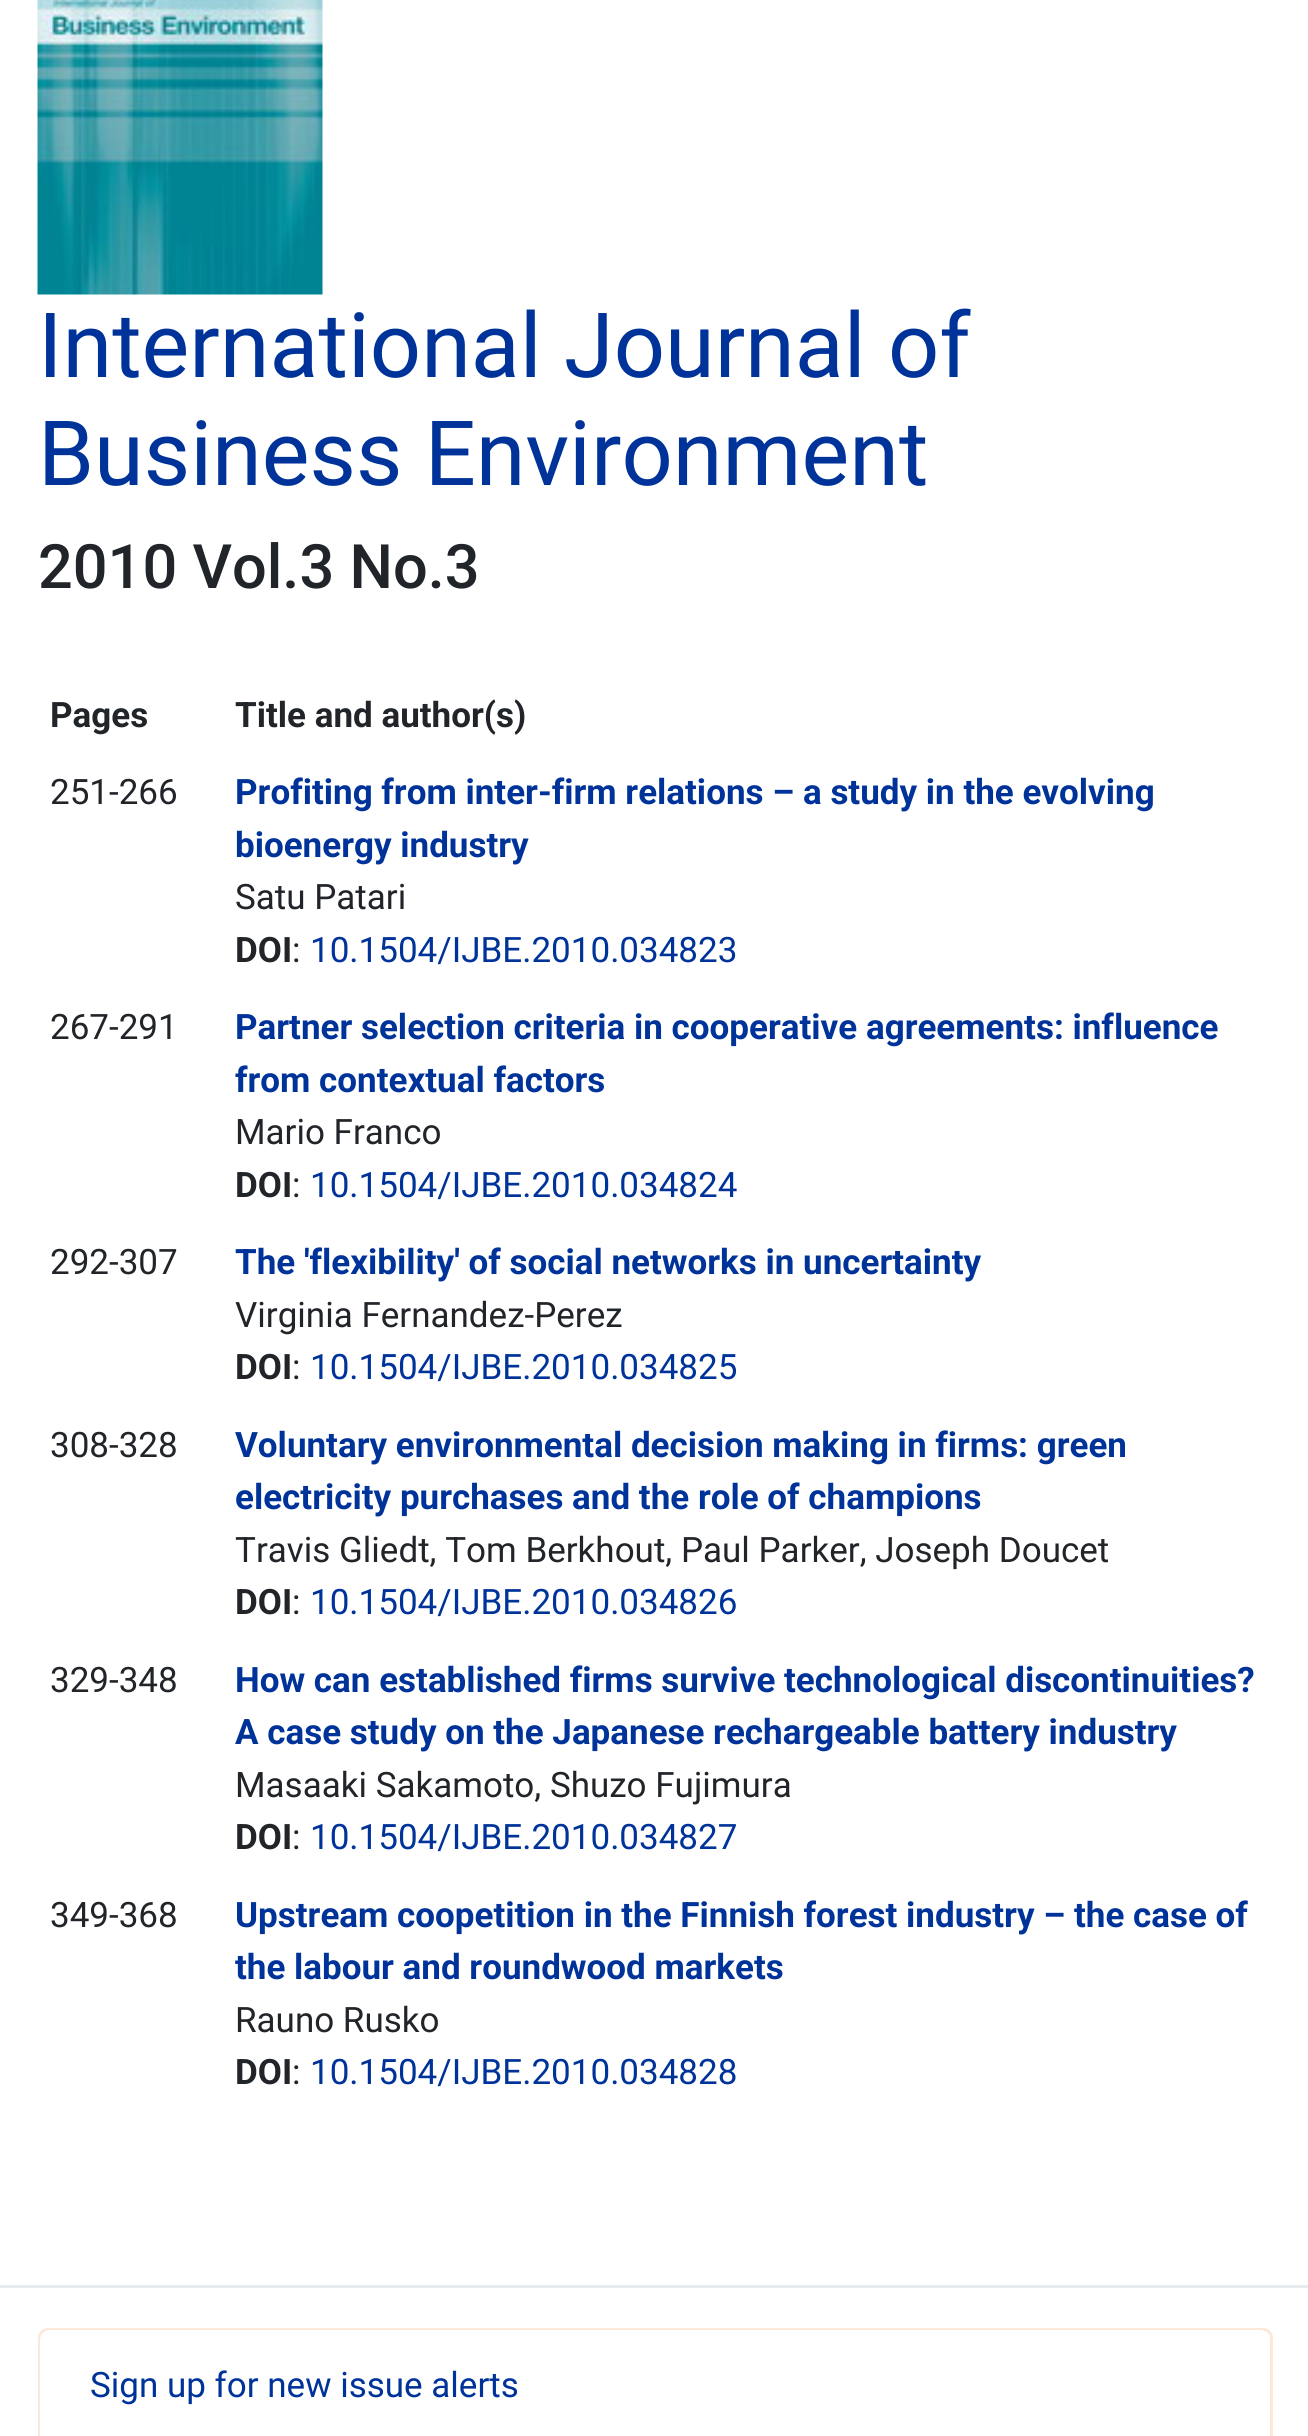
#include <cairo.h>
#include <math.h>
#include <stddef.h>


static void set_color(cairo_t *cr, unsigned color) {
    cairo_set_source_rgb(cr, (color >> 16) / 255.0, (color >> 8 & 255) / 255.0, (color & 255) / 255.0);
}

static void draw_text(cairo_t *cr, double x, double y, const char *s, const char *family, double size, int italic, int bold, unsigned color) {
    cairo_select_font_face(cr, family, italic ? CAIRO_FONT_SLANT_ITALIC : CAIRO_FONT_SLANT_NORMAL,
        bold ? CAIRO_FONT_WEIGHT_BOLD : CAIRO_FONT_WEIGHT_NORMAL);
    cairo_set_font_size(cr, size);
    set_color(cr, color);
    cairo_move_to(cr, x, y);
    cairo_show_text(cr, s);
}

static void fill_rect(cairo_t *cr, double x, double y, double w, double h, unsigned color) {
    set_color(cr, color);
    cairo_rectangle(cr, x, y, w, h);
    cairo_fill(cr);
}

static void rounded_rect(cairo_t *cr, double x, double y, double w, double h, double r) {
    cairo_new_sub_path(cr);
    cairo_arc(cr, x + w - r, y + h - r, r, 0, M_PI / 2);
    cairo_arc(cr, x + r, y + h - r, r, M_PI / 2, M_PI);
    cairo_arc(cr, x + r, y + r, r, M_PI, 1.5 * M_PI);
    cairo_arc(cr, x + w - r, y + r, r, 1.5 * M_PI, 2 * M_PI);
    cairo_close_path(cr);
}

static void draw_image(cairo_t *cr, const char *path, double x, double y, double w, double h) {
    cairo_surface_t *image = cairo_image_surface_create_from_png(path);
    cairo_save(cr);
    cairo_set_source_surface(cr, image, x, y);
    cairo_rectangle(cr, x, y, w, h);
    cairo_fill(cr);
    cairo_restore(cr);
    cairo_surface_destroy(image);
}

int main(void) {
    cairo_surface_t *surface = cairo_image_surface_create(CAIRO_FORMAT_RGB24, 1308, 2436);
    cairo_t *cr = cairo_create(surface);
    cairo_font_options_t *options = cairo_font_options_create();
    cairo_font_options_set_hint_metrics(options, CAIRO_HINT_METRICS_OFF);
    cairo_font_options_set_hint_style(options, CAIRO_HINT_STYLE_NONE);
    cairo_set_font_options(cr, options);
    cairo_set_miter_limit(cr, 4);
    set_color(cr, 0xFFFFFF);
    cairo_paint(cr);
    draw_image(cr, "assets/img1.png", 37, 0, 286, 295);
    draw_text(cr, 38, 377, "International Journal of", "Roboto", 90, 0, 0, 0x003399);
    draw_text(cr, 38, 485, "Business Environment", "Roboto", 90, 0, 0, 0x003399);
    draw_text(cr, 38, 588, "2010 Vol.3 No.3", "Roboto Medium", 61.25, 0, 0, 0x212529);
    draw_text(cr, 50, 727, "Pages", "Roboto", 35, 0, 1, 0x212529);
    draw_text(cr, 235, 727, "Title and author(s)", "Roboto", 35, 0, 1, 0x212529);
    draw_text(cr, 50, 804, "251-266", "Roboto", 35, 0, 0, 0x212529);
    draw_text(cr, 235, 804, "Profiting from inter-firm relations – a study in the evolving", "Roboto", 35, 0, 1, 0x003399);
    draw_text(cr, 235, 857, "bioenergy industry", "Roboto", 35, 0, 1, 0x003399);
    draw_text(cr, 235, 909, "Satu Patari", "Roboto", 35, 0, 0, 0x212529);
    draw_text(cr, 235, 962, "DOI", "Roboto", 35, 0, 1, 0x212529);
    draw_text(cr, 292, 962, ":", "Roboto", 35, 0, 0, 0x212529);
    draw_text(cr, 310, 962, "10.1504/IJBE.2010.034823", "Roboto", 35, 0, 0, 0x003399);
    draw_text(cr, 50, 1039, "267-291", "Roboto", 35, 0, 0, 0x212529);
    draw_text(cr, 235, 1039, "Partner selection criteria in cooperative agreements: influence", "Roboto", 35, 0, 1, 0x003399);
    draw_text(cr, 235, 1092, "from contextual factors", "Roboto", 35, 0, 1, 0x003399);
    draw_text(cr, 235, 1144, "Mario Franco", "Roboto", 35, 0, 0, 0x212529);
    draw_text(cr, 235, 1197, "DOI", "Roboto", 35, 0, 1, 0x212529);
    draw_text(cr, 292, 1197, ":", "Roboto", 35, 0, 0, 0x212529);
    draw_text(cr, 310, 1197, "10.1504/IJBE.2010.034824", "Roboto", 35, 0, 0, 0x003399);
    draw_text(cr, 50, 1274, "292-307", "Roboto", 35, 0, 0, 0x212529);
    draw_text(cr, 235, 1274, "The 'flexibility' of social networks in uncertainty", "Roboto", 35, 0, 1, 0x003399);
    draw_text(cr, 235, 1327, "Virginia Fernandez-Perez", "Roboto", 35, 0, 0, 0x212529);
    draw_text(cr, 235, 1379, "DOI", "Roboto", 35, 0, 1, 0x212529);
    draw_text(cr, 292, 1379, ":", "Roboto", 35, 0, 0, 0x212529);
    draw_text(cr, 310, 1379, "10.1504/IJBE.2010.034825", "Roboto", 35, 0, 0, 0x003399);
    draw_text(cr, 50, 1457, "308-328", "Roboto", 35, 0, 0, 0x212529);
    draw_text(cr, 235, 1457, "Voluntary environmental decision making in firms: green", "Roboto", 35, 0, 1, 0x003399);
    draw_text(cr, 235, 1509, "electricity purchases and the role of champions", "Roboto", 35, 0, 1, 0x003399);
    draw_text(cr, 235, 1562, "Travis Gliedt, Tom Berkhout, Paul Parker, Joseph Doucet", "Roboto", 35, 0, 0, 0x212529);
    draw_text(cr, 235, 1614, "DOI", "Roboto", 35, 0, 1, 0x212529);
    draw_text(cr, 292, 1614, ":", "Roboto", 35, 0, 0, 0x212529);
    draw_text(cr, 310, 1614, "10.1504/IJBE.2010.034826", "Roboto", 35, 0, 0, 0x003399);
    draw_text(cr, 50, 1692, "329-348", "Roboto", 35, 0, 0, 0x212529);
    draw_text(cr, 235, 1692, "How can established firms survive technological discontinuities?", "Roboto", 35, 0, 1, 0x003399);
    draw_text(cr, 235, 1744, "A case study on the Japanese rechargeable battery industry", "Roboto", 35, 0, 1, 0x003399);
    draw_text(cr, 235, 1797, "Masaaki Sakamoto, Shuzo Fujimura", "Roboto", 35, 0, 0, 0x212529);
    draw_text(cr, 235, 1849, "DOI", "Roboto", 35, 0, 1, 0x212529);
    draw_text(cr, 292, 1849, ":", "Roboto", 35, 0, 0, 0x212529);
    draw_text(cr, 310, 1849, "10.1504/IJBE.2010.034827", "Roboto", 35, 0, 0, 0x003399);
    draw_text(cr, 50, 1927, "349-368", "Roboto", 35, 0, 0, 0x212529);
    draw_text(cr, 235, 1927, "Upstream coopetition in the Finnish forest industry – the case of", "Roboto", 35, 0, 1, 0x003399);
    draw_text(cr, 235, 1979, "the labour and roundwood markets", "Roboto", 35, 0, 1, 0x003399);
    draw_text(cr, 235, 2032, "Rauno Rusko", "Roboto", 35, 0, 0, 0x212529);
    draw_text(cr, 235, 2084, "DOI", "Roboto", 35, 0, 1, 0x212529);
    draw_text(cr, 292, 2084, ":", "Roboto", 35, 0, 0, 0x212529);
    draw_text(cr, 310, 2084, "10.1504/IJBE.2010.034828", "Roboto", 35, 0, 0, 0x003399);
    fill_rect(cr, 0, 2285, 1308, 3, 0xE9ECEF);
    rounded_rect(cr, 39.5, 2329.5, 1232, 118, 8.5);
    set_color(cr, 0xFDE7D9);
    cairo_set_line_width(cr, 3);
    cairo_stroke(cr);
    set_color(cr, 0xFFFFFF);
    cairo_new_path(cr);
    cairo_move_to(cr, 50, 2330);
    cairo_line_to(cr, 1260, 2330);
    cairo_curve_to(cr, 1265.5, 2330, 1270, 2334.5, 1270, 2340);
    cairo_line_to(cr, 1270, 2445);
    cairo_line_to(cr, 40, 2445);
    cairo_line_to(cr, 40, 2340);
    cairo_curve_to(cr, 40, 2334.5, 44.5, 2330, 50, 2330);
    cairo_close_path(cr);
    cairo_fill(cr);
    draw_text(cr, 90, 2397, "Sign up for new issue alerts", "Roboto", 35, 0, 0, 0x003399);
    cairo_surface_write_to_png(surface, "output.png");
    cairo_font_options_destroy(options);
    cairo_destroy(cr);
    cairo_surface_destroy(surface);
    return 0;
}
